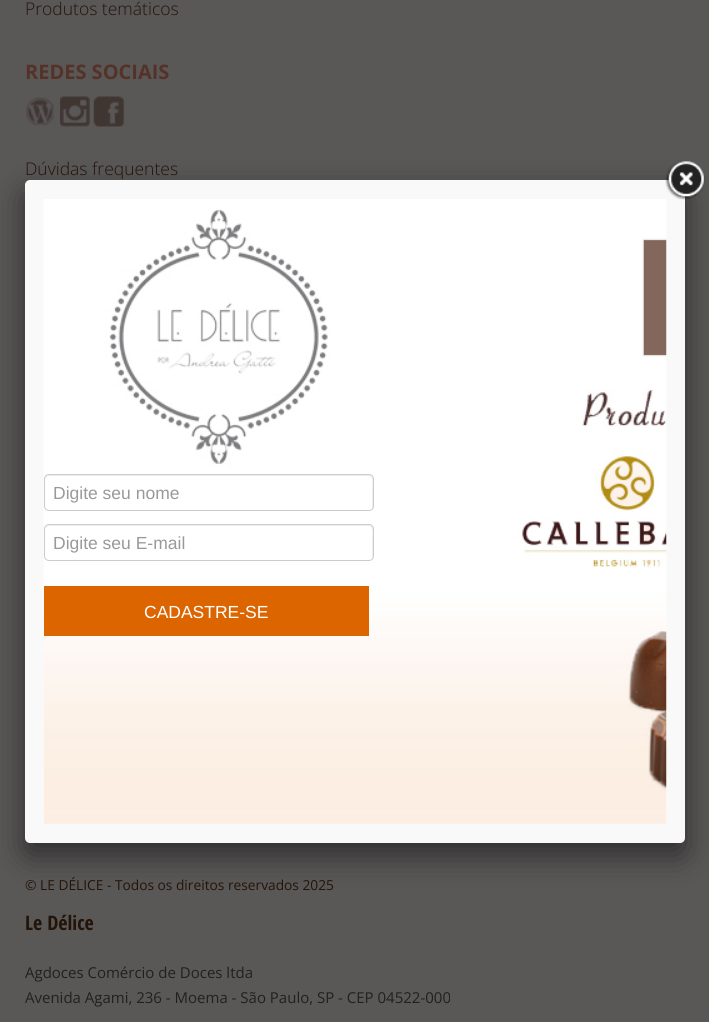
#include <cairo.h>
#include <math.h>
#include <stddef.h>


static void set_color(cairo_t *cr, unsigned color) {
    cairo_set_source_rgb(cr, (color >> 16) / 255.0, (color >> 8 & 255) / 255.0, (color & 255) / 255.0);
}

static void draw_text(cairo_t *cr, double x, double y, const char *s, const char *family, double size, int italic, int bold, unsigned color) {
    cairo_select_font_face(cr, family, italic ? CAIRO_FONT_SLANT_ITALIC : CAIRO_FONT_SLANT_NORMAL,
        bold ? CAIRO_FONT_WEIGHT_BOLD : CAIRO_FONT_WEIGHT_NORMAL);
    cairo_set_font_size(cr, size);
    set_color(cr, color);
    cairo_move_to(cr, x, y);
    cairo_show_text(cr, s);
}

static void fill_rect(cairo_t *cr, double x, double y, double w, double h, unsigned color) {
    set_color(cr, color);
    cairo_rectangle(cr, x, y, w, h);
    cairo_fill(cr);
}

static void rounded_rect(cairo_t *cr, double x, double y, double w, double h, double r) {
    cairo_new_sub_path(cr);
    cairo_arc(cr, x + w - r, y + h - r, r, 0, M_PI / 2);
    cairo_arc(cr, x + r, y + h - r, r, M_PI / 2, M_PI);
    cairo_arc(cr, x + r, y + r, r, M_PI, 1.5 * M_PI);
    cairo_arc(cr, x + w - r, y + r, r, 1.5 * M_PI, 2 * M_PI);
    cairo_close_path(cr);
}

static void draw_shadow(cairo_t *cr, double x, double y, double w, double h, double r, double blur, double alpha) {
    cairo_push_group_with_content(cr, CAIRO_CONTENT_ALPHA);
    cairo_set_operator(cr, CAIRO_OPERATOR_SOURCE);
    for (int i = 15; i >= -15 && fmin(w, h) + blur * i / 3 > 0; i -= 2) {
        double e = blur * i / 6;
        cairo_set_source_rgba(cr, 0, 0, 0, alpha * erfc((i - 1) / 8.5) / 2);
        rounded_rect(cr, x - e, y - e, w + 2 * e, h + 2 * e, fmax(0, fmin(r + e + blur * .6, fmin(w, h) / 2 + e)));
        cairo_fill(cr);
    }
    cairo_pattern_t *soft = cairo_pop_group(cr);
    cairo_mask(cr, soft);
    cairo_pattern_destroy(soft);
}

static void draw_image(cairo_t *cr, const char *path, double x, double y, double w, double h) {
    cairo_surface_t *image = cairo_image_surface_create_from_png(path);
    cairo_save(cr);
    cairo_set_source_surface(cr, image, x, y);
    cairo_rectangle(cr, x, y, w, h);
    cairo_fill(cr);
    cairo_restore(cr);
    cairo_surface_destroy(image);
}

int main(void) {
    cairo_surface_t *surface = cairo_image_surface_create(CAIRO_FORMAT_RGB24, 709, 1022);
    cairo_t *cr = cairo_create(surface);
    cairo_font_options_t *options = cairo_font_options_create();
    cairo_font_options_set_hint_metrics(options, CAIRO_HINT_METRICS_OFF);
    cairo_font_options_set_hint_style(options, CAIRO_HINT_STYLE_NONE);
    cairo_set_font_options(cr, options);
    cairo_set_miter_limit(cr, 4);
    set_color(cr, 0x5A5757);
    cairo_paint(cr);
    draw_text(cr, 25, 15, "Produtos temáticos", "Open Sans Light", 17.5, 0, 0, 0x221409);
    draw_text(cr, 25, 79, "REDES SOCIAIS", "Open Sans", 20, 0, 1, 0x543227);
    draw_image(cr, "assets/img1.png", 26, 97, 28, 29);
    draw_image(cr, "assets/img2.png", 60, 96, 30, 31);
    draw_image(cr, "assets/img3.png", 93, 96, 31, 31);
    draw_text(cr, 25, 175, "Dúvidas frequentes", "Open Sans Light", 17.5, 0, 0, 0x221409);
    draw_image(cr, "assets/img4.png", 26, 841, 1, 1);
    draw_text(cr, 25, 890, "© LE DÉLICE - Todos os direitos reservados 2025", "Open Sans", 13.75, 0, 0, 0x221409);
    draw_text(cr, 25, 930, "Le Délice", "Open Sans Condensed", 20, 0, 1, 0x221409);
    draw_text(cr, 25, 978, "Agdoces Comércio de Doces ltda", "Open Sans", 15, 0, 0, 0x221F1F);
    draw_text(cr, 25, 1003, "Avenida Agami, 236 - Moema - São Paulo, SP - CEP 04522-000", "Open Sans", 15, 0, 0, 0x221F1F);
    set_color(cr, 0x000000);
    draw_shadow(cr, 25, 193, 660, 662, 5, 15.5, 0.5);
    set_color(cr, 0xF9F9F9);
    rounded_rect(cr, 25, 180, 660, 663, 5);
    cairo_fill(cr);
    draw_image(cr, "assets/img6.png", 43, 199, 624, 625);
    draw_image(cr, "assets/img5.png", 665, 161, 40, 39);
    set_color(cr, 0xECECEC);
    cairo_new_path(cr);
    cairo_move_to(cr, 49, 476);
    cairo_line_to(cr, 369, 476);
    cairo_curve_to(cr, 374, 476, 372, 487, 372, 489);
    cairo_line_to(cr, 372, 509);
    cairo_curve_to(cr, 373, 508, 373, 507, 373, 506);
    cairo_line_to(cr, 373, 479);
    cairo_curve_to(cr, 373, 477, 371, 475, 369, 475);
    cairo_line_to(cr, 49, 475);
    cairo_curve_to(cr, 47, 475, 45, 477, 45, 479);
    cairo_line_to(cr, 45, 480);
    cairo_curve_to(cr, 45, 478, 47, 476, 49, 476);
    cairo_close_path(cr);
    cairo_fill(cr);
    rounded_rect(cr, 44.5, 474.5, 329, 36, 4.5);
    set_color(cr, 0xCCCCCC);
    cairo_set_line_width(cr, 1);
    cairo_stroke(cr);
    draw_text(cr, 53, 499, "Digite seu nome", "Liberation Sans", 17.5, 0, 0, 0x999999);
    set_color(cr, 0xECECEC);
    cairo_new_path(cr);
    cairo_move_to(cr, 49, 526);
    cairo_line_to(cr, 369, 526);
    cairo_curve_to(cr, 374, 526, 372, 537, 372, 539);
    cairo_line_to(cr, 372, 559);
    cairo_curve_to(cr, 373, 558, 373, 557, 373, 556);
    cairo_line_to(cr, 373, 529);
    cairo_curve_to(cr, 373, 527, 371, 525, 369, 525);
    cairo_line_to(cr, 49, 525);
    cairo_curve_to(cr, 47, 525, 45, 527, 45, 529);
    cairo_line_to(cr, 45, 530);
    cairo_curve_to(cr, 45, 528, 47, 526, 49, 526);
    cairo_close_path(cr);
    cairo_fill(cr);
    rounded_rect(cr, 44.5, 524.5, 329, 36, 4.5);
    set_color(cr, 0xCCCCCC);
    cairo_stroke(cr);
    draw_text(cr, 53, 549, "Digite seu E-mail", "Liberation Sans", 17.5, 0, 0, 0x999999);
    fill_rect(cr, 44, 586, 325, 50, 0xDC6500);
    draw_text(cr, 144, 618, "CADASTRE-SE", "Liberation Sans", 17.5, 0, 0, 0xFFFFFF);
    cairo_surface_write_to_png(surface, "output.png");
    cairo_font_options_destroy(options);
    cairo_destroy(cr);
    cairo_surface_destroy(surface);
    return 0;
}
